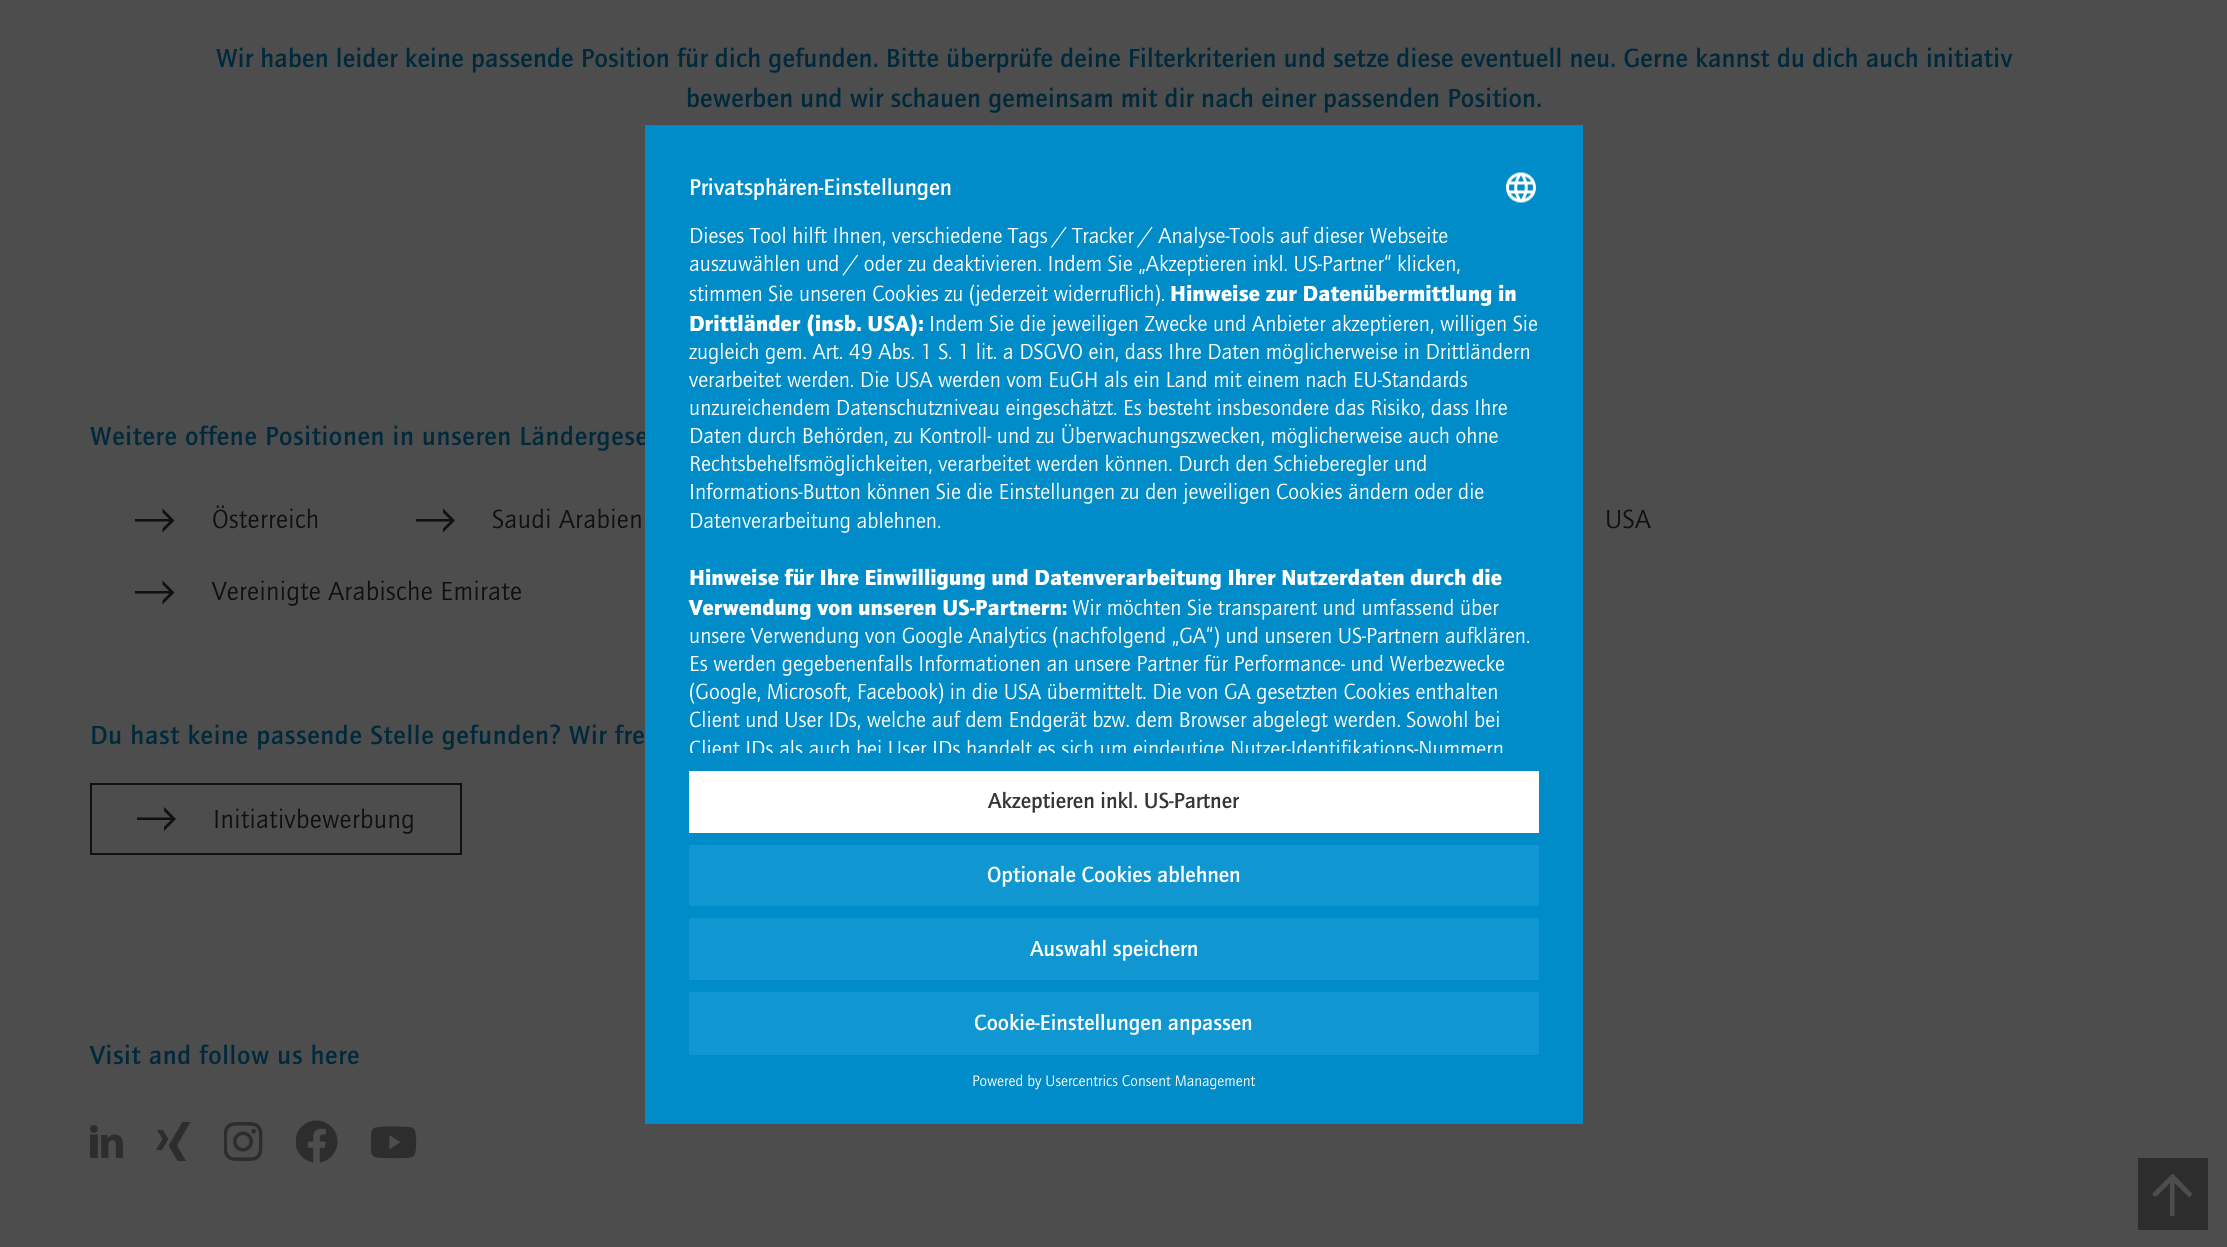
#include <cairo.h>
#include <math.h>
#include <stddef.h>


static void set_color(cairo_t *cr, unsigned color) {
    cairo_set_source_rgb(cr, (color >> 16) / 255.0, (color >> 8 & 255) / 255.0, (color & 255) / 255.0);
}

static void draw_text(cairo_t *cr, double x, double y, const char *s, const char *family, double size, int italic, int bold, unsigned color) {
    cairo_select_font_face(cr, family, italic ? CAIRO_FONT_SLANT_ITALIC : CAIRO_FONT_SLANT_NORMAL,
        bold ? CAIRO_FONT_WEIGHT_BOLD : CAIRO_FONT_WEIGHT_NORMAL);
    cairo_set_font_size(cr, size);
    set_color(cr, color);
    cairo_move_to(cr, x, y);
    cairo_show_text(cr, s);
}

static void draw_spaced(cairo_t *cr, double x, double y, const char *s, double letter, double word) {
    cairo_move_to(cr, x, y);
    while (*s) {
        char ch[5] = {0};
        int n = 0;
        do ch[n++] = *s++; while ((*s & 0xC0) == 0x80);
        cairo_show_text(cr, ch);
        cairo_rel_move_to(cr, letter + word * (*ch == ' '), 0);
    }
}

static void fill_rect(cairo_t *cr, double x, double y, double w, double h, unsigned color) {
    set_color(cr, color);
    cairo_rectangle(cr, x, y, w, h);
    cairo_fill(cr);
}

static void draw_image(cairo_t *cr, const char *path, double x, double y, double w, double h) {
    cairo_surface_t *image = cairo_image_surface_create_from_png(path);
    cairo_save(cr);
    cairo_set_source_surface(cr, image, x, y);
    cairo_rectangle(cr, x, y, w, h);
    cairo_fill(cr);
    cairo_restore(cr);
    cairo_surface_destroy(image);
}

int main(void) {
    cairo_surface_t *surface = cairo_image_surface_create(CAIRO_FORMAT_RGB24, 2227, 1247);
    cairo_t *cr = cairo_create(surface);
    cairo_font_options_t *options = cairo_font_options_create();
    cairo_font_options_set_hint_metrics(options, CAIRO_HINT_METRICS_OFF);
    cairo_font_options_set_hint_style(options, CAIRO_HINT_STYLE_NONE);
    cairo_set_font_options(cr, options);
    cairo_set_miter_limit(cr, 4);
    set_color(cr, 0x4D4D4D);
    cairo_paint(cr);
    cairo_select_font_face(cr, "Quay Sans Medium", CAIRO_FONT_SLANT_NORMAL, CAIRO_FONT_WEIGHT_NORMAL);
    cairo_set_font_size(cr, 27);
    set_color(cr, 0x002A3C);
    draw_spaced(cr, 216, 67, "Wir haben leider keine passende Position für dich gefunden. Bitte überprüfe deine Filterkriterien und setze diese eventuell neu. Gerne kannst du dich auch initiativ", 0.27, 0);
    draw_spaced(cr, 686, 107, "bewerben und wir schauen gemeinsam mit dir nach einer passenden Position.", 0.27, 0);
    draw_spaced(cr, 90, 445, "Weitere offene Positionen in unseren Ländergese", 0.7, 0);
    set_color(cr, 0x101010);
    cairo_new_path(cr);
    cairo_move_to(cr, 169.5, 521.5);
    cairo_line_to(cr, 135, 521.5);
    cairo_line_to(cr, 135, 519);
    cairo_line_to(cr, 169, 519);
    cairo_line_to(cr, 162.5, 512.5);
    cairo_line_to(cr, 162.5, 508.5);
    cairo_line_to(cr, 174.5, 520.5);
    cairo_line_to(cr, 162.5, 532.5);
    cairo_line_to(cr, 162.5, 528.5);
    cairo_close_path(cr);
    cairo_fill(cr);
    cairo_select_font_face(cr, "Quay Sans", CAIRO_FONT_SLANT_NORMAL, CAIRO_FONT_WEIGHT_NORMAL);
    draw_spaced(cr, 212, 528, "Österreich", 0.4, 0);
    cairo_save(cr);
    cairo_rectangle(cr, 416, 509, 40, 24);
    cairo_clip(cr);
    cairo_new_path(cr);
    cairo_move_to(cr, 450, 521.5);
    cairo_line_to(cr, 415.5, 521.5);
    cairo_line_to(cr, 415.5, 519);
    cairo_line_to(cr, 449.5, 519);
    cairo_line_to(cr, 443, 512.5);
    cairo_line_to(cr, 443, 508.5);
    cairo_line_to(cr, 455, 520.5);
    cairo_line_to(cr, 443, 532.5);
    cairo_line_to(cr, 443, 528.5);
    cairo_close_path(cr);
    cairo_fill(cr);
    cairo_restore(cr);
    draw_spaced(cr, 492, 528, "Saudi Arabien", 0.4, 0);
    draw_spaced(cr, 1605, 528, "USA", 0.4, 0);
    cairo_new_path(cr);
    cairo_move_to(cr, 169.5, 593.5);
    cairo_line_to(cr, 135, 593.5);
    cairo_line_to(cr, 135, 591);
    cairo_line_to(cr, 169, 591);
    cairo_line_to(cr, 162.5, 584.5);
    cairo_line_to(cr, 162.5, 580.5);
    cairo_line_to(cr, 174.5, 592.5);
    cairo_line_to(cr, 162.5, 604.5);
    cairo_line_to(cr, 162.5, 600.5);
    cairo_close_path(cr);
    cairo_fill(cr);
    draw_spaced(cr, 212, 600, "Vereinigte Arabische Emirate", 0.4, 0);
    cairo_select_font_face(cr, "Quay Sans Medium", CAIRO_FONT_SLANT_NORMAL, CAIRO_FONT_WEIGHT_NORMAL);
    set_color(cr, 0x002A3C);
    draw_spaced(cr, 90, 744, "Du hast keine passende Stelle gefunden? Wir fre", 0.7, 0);
    cairo_rectangle(cr, 91, 784, 370, 70);
    set_color(cr, 0x101010);
    cairo_stroke(cr);
    cairo_save(cr);
    cairo_rectangle(cr, 137, 807, 40, 24);
    cairo_clip(cr);
    cairo_new_path(cr);
    cairo_move_to(cr, 171, 820);
    cairo_line_to(cr, 136.5, 820);
    cairo_line_to(cr, 136.5, 817.5);
    cairo_line_to(cr, 170.5, 817.5);
    cairo_line_to(cr, 164, 811);
    cairo_line_to(cr, 164, 807);
    cairo_line_to(cr, 176, 819);
    cairo_line_to(cr, 164, 831);
    cairo_line_to(cr, 164, 827);
    cairo_close_path(cr);
    cairo_fill(cr);
    cairo_restore(cr);
    cairo_select_font_face(cr, "Quay Sans", CAIRO_FONT_SLANT_NORMAL, CAIRO_FONT_WEIGHT_NORMAL);
    draw_spaced(cr, 213, 828, "Initiativbewerbung", 0.4, 0);
    cairo_select_font_face(cr, "Quay Sans Medium", CAIRO_FONT_SLANT_NORMAL, CAIRO_FONT_WEIGHT_NORMAL);
    set_color(cr, 0x002A3C);
    draw_spaced(cr, 90, 1064, "Visit and follow us here", 0.7, 0);
    draw_image(cr, "assets/img1.png", 90, 1125, 33, 33);
    set_color(cr, 0x2D2D2D);
    cairo_set_fill_rule(cr, CAIRO_FILL_RULE_EVEN_ODD);
    cairo_new_path(cr);
    cairo_move_to(cr, 182.5, 1122);
    cairo_line_to(cr, 190.5, 1122);
    cairo_line_to(cr, 177, 1145.5);
    cairo_line_to(cr, 186, 1161);
    cairo_line_to(cr, 177.5, 1161);
    cairo_line_to(cr, 168.5, 1145.5);
    cairo_close_path(cr);
    cairo_move_to(cr, 157, 1130);
    cairo_line_to(cr, 163, 1130);
    cairo_line_to(cr, 168.5, 1139);
    cairo_line_to(cr, 162, 1150);
    cairo_line_to(cr, 156, 1150);
    cairo_line_to(cr, 162.5, 1139);
    cairo_close_path(cr);
    cairo_fill(cr);
    draw_image(cr, "assets/img2.png", 224, 1122, 39, 39);
    draw_image(cr, "assets/img3.png", 296, 1120, 42, 43);
    draw_image(cr, "assets/img4.png", 371, 1126, 46, 33);
    fill_rect(cr, 2138, 1158, 70, 72, 0x2D2D2D);
    set_color(cr, 0x4D4D4D);
    cairo_new_path(cr);
    cairo_move_to(cr, 2155.5, 1196);
    cairo_line_to(cr, 2153.5, 1194);
    cairo_line_to(cr, 2172.5, 1175);
    cairo_line_to(cr, 2191, 1194);
    cairo_line_to(cr, 2189.5, 1196);
    cairo_line_to(cr, 2173.5, 1180.5);
    cairo_line_to(cr, 2173.5, 1215);
    cairo_line_to(cr, 2171, 1215);
    cairo_line_to(cr, 2171, 1180.5);
    cairo_line_to(cr, 2155.5, 1196);
    cairo_fill_preserve(cr);
    cairo_set_line_width(cr, 2.2);
    cairo_stroke(cr);
    fill_rect(cr, 645, 125, 938, 999, 0x008CC8);
    draw_text(cr, 689, 195, "Privatsphären-Einstellungen", "Quay Sans Medium", 23.6, 0, 0, 0xFFFFFF);
    draw_image(cr, "assets/img5.png", 1506, 172, 30, 31);
    draw_text(cr, 689, 243, "Dieses Tool hilft Ihnen, verschiedene Tags / Tracker / Analyse-Tools auf dieser Webseite", "Quay Sans", 22.5, 0, 0, 0xFFFFFF);
    draw_text(cr, 689, 271, "auszuwählen und / oder zu deaktivieren. Indem Sie „Akzeptieren inkl. US-Partner“ klicken,", "Quay Sans", 22.5, 0, 0, 0xFFFFFF);
    draw_text(cr, 689, 301, "stimmen Sie unseren Cookies zu (jederzeit widerruflich).", "Quay Sans", 22.5, 0, 0, 0xFFFFFF);
    draw_text(cr, 1170, 301, "Hinweise zur Datenübermittlung in", "Quay Sans Black", 22.5, 0, 0, 0xFFFFFF);
    draw_text(cr, 689, 331, "Drittländer (insb. USA):", "Quay Sans Black", 22.5, 0, 0, 0xFFFFFF);
    draw_text(cr, 929, 331, "Indem Sie die jeweiligen Zwecke und Anbieter akzeptieren, willigen Sie", "Quay Sans", 22.5, 0, 0, 0xFFFFFF);
    draw_text(cr, 689, 359, "zugleich gem. Art. 49 Abs. 1 S. 1 lit. a DSGVO ein, dass Ihre Daten möglicherweise in Drittländern", "Quay Sans", 22.5, 0, 0, 0xFFFFFF);
    draw_text(cr, 689, 387, "verarbeitet werden. Die USA werden vom EuGH als ein Land mit einem nach EU-Standards", "Quay Sans", 22.5, 0, 0, 0xFFFFFF);
    draw_text(cr, 689, 415, "unzureichendem Datenschutzniveau eingeschätzt. Es besteht insbesondere das Risiko, dass Ihre", "Quay Sans", 22.5, 0, 0, 0xFFFFFF);
    draw_text(cr, 689, 443, "Daten durch Behörden, zu Kontroll- und zu Überwachungszwecken, möglicherweise auch ohne", "Quay Sans", 22.5, 0, 0, 0xFFFFFF);
    draw_text(cr, 689, 471, "Rechtsbehelfsmöglichkeiten, verarbeitet werden können. Durch den Schieberegler und", "Quay Sans", 22.5, 0, 0, 0xFFFFFF);
    draw_text(cr, 689, 499, "Informations-Button können Sie die Einstellungen zu den jeweiligen Cookies ändern oder die", "Quay Sans", 22.5, 0, 0, 0xFFFFFF);
    draw_text(cr, 689, 528, "Datenverarbeitung ablehnen.", "Quay Sans", 22.5, 0, 0, 0xFFFFFF);
    draw_text(cr, 689, 585, "Hinweise für Ihre Einwilligung und Datenverarbeitung Ihrer Nutzerdaten durch die", "Quay Sans Black", 22.5, 0, 0, 0xFFFFFF);
    draw_text(cr, 689, 615, "Verwendung von unseren US-Partnern:", "Quay Sans Black", 22.5, 0, 0, 0xFFFFFF);
    draw_text(cr, 1072, 615, "Wir möchten Sie transparent und umfassend über", "Quay Sans", 22.5, 0, 0, 0xFFFFFF);
    draw_text(cr, 689, 643, "unsere Verwendung von Google Analytics (nachfolgend „GA“) und unseren US-Partnern aufklären.", "Quay Sans", 22.5, 0, 0, 0xFFFFFF);
    draw_text(cr, 689, 671, "Es werden gegebenenfalls Informationen an unsere Partner für Performance- und Werbezwecke", "Quay Sans", 22.5, 0, 0, 0xFFFFFF);
    draw_text(cr, 689, 699, "(Google, Microsoft, Facebook) in die USA übermittelt. Die von GA gesetzten Cookies enthalten", "Quay Sans", 22.5, 0, 0, 0xFFFFFF);
    draw_text(cr, 689, 727, "Client und User IDs, welche auf dem Endgerät bzw. dem Browser abgelegt werden. Sowohl bei", "Quay Sans", 22.5, 0, 0, 0xFFFFFF);
    cairo_save(cr);
    cairo_set_fill_rule(cr, CAIRO_FILL_RULE_WINDING);
    cairo_rectangle(cr, 689, 218, 850, 535);
    cairo_clip(cr);
    draw_text(cr, 689, 756, "Client IDs als auch bei User IDs handelt es sich um eindeutige Nutzer-Identifikations-Nummern", "Quay Sans", 22.5, 0, 0, 0xFFFFFF);
    cairo_restore(cr);
    fill_rect(cr, 689, 771, 850, 62, 0xFFFFFF);
    draw_text(cr, 988, 808, "Akzeptieren inkl. US-Partner", "Quay Sans Medium", 22.5, 0, 0, 0x353534);
    fill_rect(cr, 689, 845, 850, 61, 0x1097D2);
    draw_text(cr, 987, 882, "Optionale Cookies ablehnen", "Quay Sans Medium", 22.5, 0, 0, 0xFFFFFF);
    fill_rect(cr, 689, 918, 850, 62, 0x1097D2);
    draw_text(cr, 1030, 956, "Auswahl speichern", "Quay Sans Medium", 22.5, 0, 0, 0xFFFFFF);
    fill_rect(cr, 689, 992, 850, 63, 0x1097D2);
    draw_text(cr, 974, 1030, "Cookie-Einstellungen anpassen", "Quay Sans Medium", 22.5, 0, 0, 0xFFFFFF);
    draw_text(cr, 972, 1086, "Powered by Usercentrics Consent Management", "Quay Sans", 15.75, 0, 0, 0xFFFFFF);
    cairo_surface_write_to_png(surface, "output.png");
    cairo_font_options_destroy(options);
    cairo_destroy(cr);
    cairo_surface_destroy(surface);
    return 0;
}
